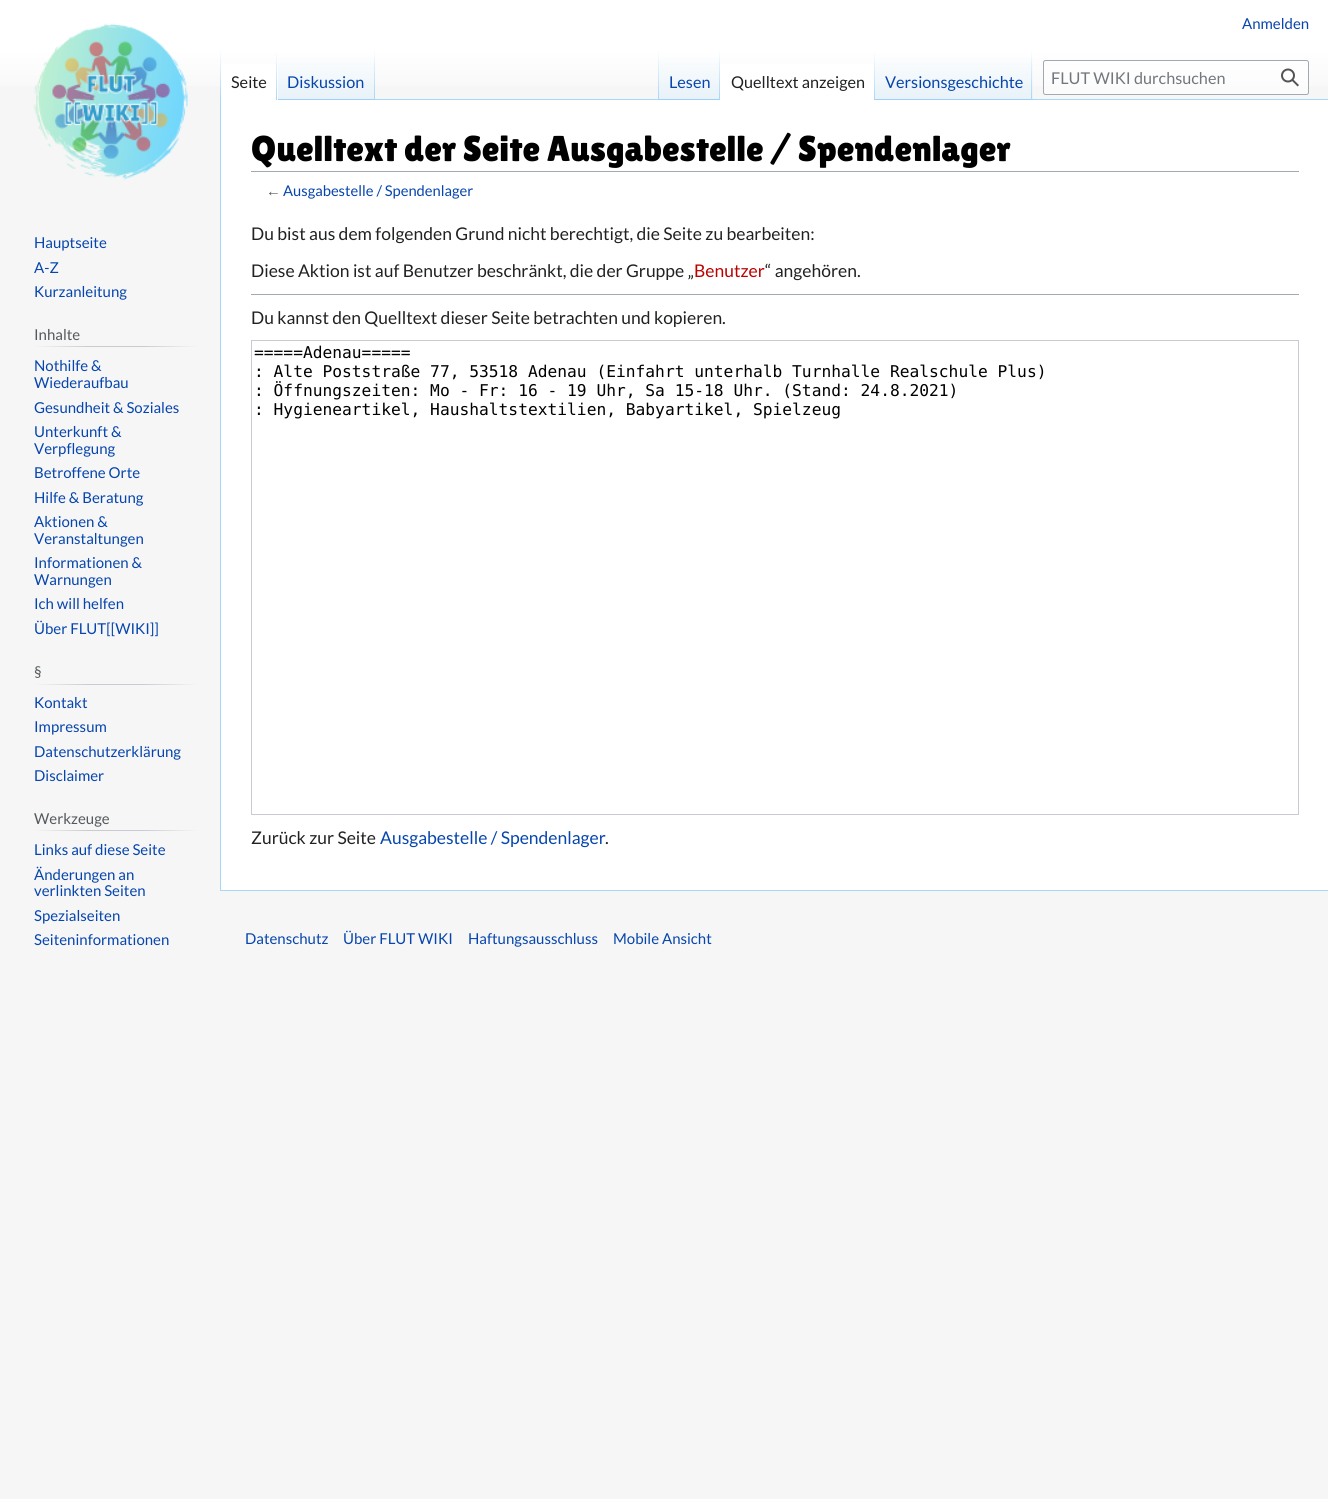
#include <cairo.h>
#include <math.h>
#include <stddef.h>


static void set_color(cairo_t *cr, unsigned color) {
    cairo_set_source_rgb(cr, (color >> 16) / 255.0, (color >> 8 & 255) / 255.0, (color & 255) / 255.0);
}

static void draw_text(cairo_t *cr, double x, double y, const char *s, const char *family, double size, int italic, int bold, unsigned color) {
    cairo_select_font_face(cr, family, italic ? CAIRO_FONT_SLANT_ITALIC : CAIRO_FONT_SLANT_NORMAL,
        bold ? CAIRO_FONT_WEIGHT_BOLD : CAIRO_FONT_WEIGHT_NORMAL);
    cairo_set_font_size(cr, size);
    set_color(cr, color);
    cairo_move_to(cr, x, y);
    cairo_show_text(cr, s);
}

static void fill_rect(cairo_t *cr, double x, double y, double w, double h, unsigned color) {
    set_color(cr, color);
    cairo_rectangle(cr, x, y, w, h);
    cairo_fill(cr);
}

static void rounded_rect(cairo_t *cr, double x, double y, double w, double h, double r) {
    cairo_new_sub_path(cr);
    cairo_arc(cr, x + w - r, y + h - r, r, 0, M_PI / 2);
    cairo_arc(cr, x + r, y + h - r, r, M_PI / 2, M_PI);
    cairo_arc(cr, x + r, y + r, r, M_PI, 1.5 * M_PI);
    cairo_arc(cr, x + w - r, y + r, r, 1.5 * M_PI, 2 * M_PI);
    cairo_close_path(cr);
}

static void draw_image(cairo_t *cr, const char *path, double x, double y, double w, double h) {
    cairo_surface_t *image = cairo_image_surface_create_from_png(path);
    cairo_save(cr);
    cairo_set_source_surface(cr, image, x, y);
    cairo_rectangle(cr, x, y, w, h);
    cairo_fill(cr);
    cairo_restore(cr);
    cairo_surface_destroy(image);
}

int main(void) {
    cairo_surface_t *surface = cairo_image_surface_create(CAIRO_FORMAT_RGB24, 1328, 1499);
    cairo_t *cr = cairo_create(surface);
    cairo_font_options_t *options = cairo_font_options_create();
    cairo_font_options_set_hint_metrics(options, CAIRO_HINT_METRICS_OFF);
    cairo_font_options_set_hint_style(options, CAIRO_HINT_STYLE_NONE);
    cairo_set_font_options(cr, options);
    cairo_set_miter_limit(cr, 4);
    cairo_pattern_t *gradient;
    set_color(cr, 0xF6F6F6);
    cairo_paint(cr);
    gradient = cairo_pattern_create_linear(664, 0, 664, 100);
    cairo_pattern_add_color_stop_rgba(gradient, 0.5, 1, 1, 1, 1);
    cairo_pattern_add_color_stop_rgba(gradient, 1, 0.965, 0.965, 0.965, 1);
    cairo_set_source(cr, gradient);
    cairo_pattern_destroy(gradient);
    cairo_rectangle(cr, 0, 0, 1328, 86);
    cairo_fill(cr);
    draw_text(cr, 1242, 29, "Anmelden", "Lato", 15, 0, 0, 0x0645AD);
    fill_rect(cr, 220, 890, 1108, 1, 0xA7D7F9);
    fill_rect(cr, 220, 99, 1, 792, 0xA7D7F9);
    gradient = cairo_pattern_create_linear(221, 50, 221, 100);
    cairo_pattern_add_color_stop_rgba(gradient, 0, 0.655, 0.843, 0.976, 0);
    cairo_pattern_add_color_stop_rgba(gradient, 1, 0.655, 0.843, 0.976, 1);
    cairo_set_source(cr, gradient);
    cairo_pattern_destroy(gradient);
    cairo_rectangle(cr, 220, 50, 1, 50);
    cairo_fill(cr);
    fill_rect(cr, 221, 64, 57, 36, 0xFFFFFF);
    gradient = cairo_pattern_create_linear(277, 50, 277, 100);
    cairo_pattern_add_color_stop_rgba(gradient, 0, 1, 1, 1, 1);
    cairo_pattern_add_color_stop_rgba(gradient, 1, 0.655, 0.843, 0.976, 1);
    cairo_set_source(cr, gradient);
    cairo_pattern_destroy(gradient);
    cairo_rectangle(cr, 276, 50, 1, 50);
    cairo_fill(cr);
    draw_text(cr, 231, 88, "Seite", "Lato", 16.25, 0, 0, 0x202122);
    gradient = cairo_pattern_create_linear(326, 100, 326, 50);
    cairo_pattern_add_color_stop_rgba(gradient, 0, 0.467, 0.757, 0.965, 1);
    cairo_pattern_add_color_stop_rgba(gradient, 0.03, 0.91, 0.949, 0.973, 1);
    cairo_pattern_add_color_stop_rgba(gradient, 1, 1, 1, 1, 1);
    cairo_set_source(cr, gradient);
    cairo_pattern_destroy(gradient);
    cairo_rectangle(cr, 278, 57, 97, 43);
    cairo_fill(cr);
    gradient = cairo_pattern_create_linear(374, 50, 374, 100);
    cairo_pattern_add_color_stop_rgba(gradient, 0, 0.655, 0.843, 0.976, 0);
    cairo_pattern_add_color_stop_rgba(gradient, 1, 0.655, 0.843, 0.976, 1);
    cairo_set_source(cr, gradient);
    cairo_pattern_destroy(gradient);
    cairo_rectangle(cr, 374, 50, 1, 50);
    cairo_fill(cr);
    draw_text(cr, 287, 88, "Diskussion", "Lato", 16.25, 0, 0, 0x0645AD);
    fill_rect(cr, 375, 99, 953, 1, 0xA7D7F9);
    gradient = cairo_pattern_create_linear(658, 50, 658, 100);
    cairo_pattern_add_color_stop_rgba(gradient, 0, 0.655, 0.843, 0.976, 0);
    cairo_pattern_add_color_stop_rgba(gradient, 1, 0.655, 0.843, 0.976, 1);
    cairo_set_source(cr, gradient);
    cairo_pattern_destroy(gradient);
    cairo_rectangle(cr, 658, 50, 1, 50);
    cairo_fill(cr);
    gradient = cairo_pattern_create_linear(689, 100, 689, 50);
    cairo_pattern_add_color_stop_rgba(gradient, 0, 0.467, 0.757, 0.965, 1);
    cairo_pattern_add_color_stop_rgba(gradient, 0.03, 0.91, 0.949, 0.973, 1);
    cairo_pattern_add_color_stop_rgba(gradient, 1, 1, 1, 1, 1);
    cairo_set_source(cr, gradient);
    cairo_pattern_destroy(gradient);
    cairo_rectangle(cr, 659, 57, 61, 43);
    cairo_fill(cr);
    gradient = cairo_pattern_create_linear(719, 50, 719, 100);
    cairo_pattern_add_color_stop_rgba(gradient, 0, 0.655, 0.843, 0.976, 0);
    cairo_pattern_add_color_stop_rgba(gradient, 1, 0.655, 0.843, 0.976, 1);
    cairo_set_source(cr, gradient);
    cairo_pattern_destroy(gradient);
    cairo_rectangle(cr, 719, 50, 1, 50);
    cairo_fill(cr);
    draw_text(cr, 669, 88, "Lesen", "Lato", 16.25, 0, 0, 0x0645AD);
    fill_rect(cr, 720, 64, 154, 36, 0xFFFFFF);
    gradient = cairo_pattern_create_linear(874, 50, 874, 100);
    cairo_pattern_add_color_stop_rgba(gradient, 0, 1, 1, 1, 1);
    cairo_pattern_add_color_stop_rgba(gradient, 1, 0.655, 0.843, 0.976, 1);
    cairo_set_source(cr, gradient);
    cairo_pattern_destroy(gradient);
    cairo_rectangle(cr, 874, 50, 1, 50);
    cairo_fill(cr);
    draw_text(cr, 731, 88, "Quelltext anzeigen", "Lato", 16.25, 0, 0, 0x202122);
    gradient = cairo_pattern_create_linear(954, 100, 954, 50);
    cairo_pattern_add_color_stop_rgba(gradient, 0, 0.467, 0.757, 0.965, 1);
    cairo_pattern_add_color_stop_rgba(gradient, 0.03, 0.91, 0.949, 0.973, 1);
    cairo_pattern_add_color_stop_rgba(gradient, 1, 1, 1, 1, 1);
    cairo_set_source(cr, gradient);
    cairo_pattern_destroy(gradient);
    cairo_rectangle(cr, 875, 57, 158, 43);
    cairo_fill(cr);
    gradient = cairo_pattern_create_linear(1032, 50, 1032, 100);
    cairo_pattern_add_color_stop_rgba(gradient, 0, 0.655, 0.843, 0.976, 0);
    cairo_pattern_add_color_stop_rgba(gradient, 1, 0.655, 0.843, 0.976, 1);
    cairo_set_source(cr, gradient);
    cairo_pattern_destroy(gradient);
    cairo_rectangle(cr, 1031, 50, 1, 50);
    cairo_fill(cr);
    draw_text(cr, 885, 88, "Versionsgeschichte", "Lato", 16.25, 0, 0, 0x0645AD);
    cairo_set_source_rgba(cr, 1, 1, 1, 0.5);
    rounded_rect(cr, 1043.5, 60.5, 265, 34, 2);
    cairo_fill_preserve(cr);
    set_color(cr, 0xA2A9B1);
    cairo_set_line_width(cr, 1);
    cairo_stroke(cr);
    draw_text(cr, 1051, 84, "FLUT WIKI durchsuchen", "Lato", 16.25, 0, 0, 0x72777D);
    draw_image(cr, "assets/img1.png", 1281, 68, 18, 19);
    draw_image(cr, "assets/img2.png", 33, 23, 155, 157);
    draw_text(cr, 34, 248, "Hauptseite", "Lato", 15, 0, 0, 0x0645AD);
    draw_text(cr, 34, 273, "A-Z", "Lato", 15, 0, 0, 0x0645AD);
    draw_text(cr, 34, 297, "Kurzanleitung", "Lato", 15, 0, 0, 0x0645AD);
    gradient = cairo_pattern_create_linear(34, 347, 198, 347);
    cairo_pattern_add_color_stop_rgba(gradient, 0, 0.965, 0.965, 0.965, 1);
    cairo_pattern_add_color_stop_rgba(gradient, 0.33, 0.784, 0.8, 0.82, 1);
    cairo_pattern_add_color_stop_rgba(gradient, 0.66, 0.784, 0.8, 0.82, 1);
    cairo_pattern_add_color_stop_rgba(gradient, 1, 0.965, 0.965, 0.965, 1);
    cairo_set_source(cr, gradient);
    cairo_pattern_destroy(gradient);
    cairo_rectangle(cr, 34, 346, 164, 1);
    cairo_fill(cr);
    draw_text(cr, 34, 340, "Inhalte", "Lato", 15, 0, 0, 0x54595D);
    draw_text(cr, 34, 371, "Nothilfe &", "Lato", 15, 0, 0, 0x0645AD);
    draw_text(cr, 34, 388, "Wiederaufbau", "Lato", 15, 0, 0, 0x0645AD);
    draw_text(cr, 34, 413, "Gesundheit & Soziales", "Lato", 15, 0, 0, 0x0645AD);
    draw_text(cr, 34, 437, "Unterkunft &", "Lato", 15, 0, 0, 0x0645AD);
    draw_text(cr, 34, 454, "Verpflegung", "Lato", 15, 0, 0, 0x0645AD);
    draw_text(cr, 34, 478, "Betroffene Orte", "Lato", 15, 0, 0, 0x0645AD);
    draw_text(cr, 34, 503, "Hilfe & Beratung", "Lato", 15, 0, 0, 0x0645AD);
    draw_text(cr, 34, 527, "Aktionen &", "Lato", 15, 0, 0, 0x0645AD);
    draw_text(cr, 34, 544, "Veranstaltungen", "Lato", 15, 0, 0, 0x0645AD);
    draw_text(cr, 34, 568, "Informationen &", "Lato", 15, 0, 0, 0x0645AD);
    draw_text(cr, 34, 585, "Warnungen", "Lato", 15, 0, 0, 0x0645AD);
    draw_text(cr, 34, 609, "Ich will helfen", "Lato", 15, 0, 0, 0x0645AD);
    draw_text(cr, 34, 634, "Über FLUT[[WIKI]]", "Lato", 15, 0, 0, 0x0645AD);
    gradient = cairo_pattern_create_linear(34, 684, 198, 684);
    cairo_pattern_add_color_stop_rgba(gradient, 0, 0.965, 0.965, 0.965, 1);
    cairo_pattern_add_color_stop_rgba(gradient, 0.33, 0.784, 0.8, 0.82, 1);
    cairo_pattern_add_color_stop_rgba(gradient, 0.66, 0.784, 0.8, 0.82, 1);
    cairo_pattern_add_color_stop_rgba(gradient, 1, 0.965, 0.965, 0.965, 1);
    cairo_set_source(cr, gradient);
    cairo_pattern_destroy(gradient);
    cairo_rectangle(cr, 34, 684, 164, 1);
    cairo_fill(cr);
    draw_text(cr, 34, 677, "§", "Lato", 15, 0, 0, 0x54595D);
    draw_text(cr, 34, 708, "Kontakt", "Lato", 15, 0, 0, 0x0645AD);
    draw_text(cr, 34, 732, "Impressum", "Lato", 15, 0, 0, 0x0645AD);
    draw_text(cr, 34, 757, "Datenschutzerklärung", "Lato", 15, 0, 0, 0x0645AD);
    draw_text(cr, 34, 781, "Disclaimer", "Lato", 15, 0, 0, 0x0645AD);
    gradient = cairo_pattern_create_linear(34, 831, 198, 831);
    cairo_pattern_add_color_stop_rgba(gradient, 0, 0.965, 0.965, 0.965, 1);
    cairo_pattern_add_color_stop_rgba(gradient, 0.33, 0.784, 0.8, 0.82, 1);
    cairo_pattern_add_color_stop_rgba(gradient, 0.66, 0.784, 0.8, 0.82, 1);
    cairo_pattern_add_color_stop_rgba(gradient, 1, 0.965, 0.965, 0.965, 1);
    cairo_set_source(cr, gradient);
    cairo_pattern_destroy(gradient);
    cairo_rectangle(cr, 34, 830, 164, 1);
    cairo_fill(cr);
    draw_text(cr, 34, 824, "Werkzeuge", "Lato", 15, 0, 0, 0x54595D);
    draw_text(cr, 34, 855, "Links auf diese Seite", "Lato", 15, 0, 0, 0x0645AD);
    draw_text(cr, 34, 880, "Änderungen an", "Lato", 15, 0, 0, 0x0645AD);
    draw_text(cr, 34, 896, "verlinkten Seiten", "Lato", 15, 0, 0, 0x0645AD);
    draw_text(cr, 34, 921, "Spezialseiten", "Lato", 15, 0, 0, 0x0645AD);
    draw_text(cr, 34, 945, "Seiteninformationen", "Lato", 15, 0, 0, 0x0645AD);
    fill_rect(cr, 221, 100, 1107, 790, 0xFFFFFF);
    fill_rect(cr, 251, 171, 1048, 1, 0xA2A9B1);
    draw_text(cr, 251, 161, "Quelltext der Seite Ausgabestelle / Spendenlager", "Lilita One", 36, 0, 0, 0x000000);
    draw_text(cr, 266, 196, "←", "Liberation Sans", 14.75, 0, 0, 0x54595D);
    draw_text(cr, 283, 196, "Ausgabestelle / Spendenlager", "Lato", 14.75, 0, 0, 0x0645AD);
    draw_text(cr, 251, 240, "Du bist aus dem folgenden Grund nicht berechtigt, die Seite zu bearbeiten:", "Lato", 17.5, 0, 0, 0x202122);
    draw_text(cr, 251, 277, "Diese Aktion ist auf Benutzer beschränkt, die der Gruppe „", "Lato", 17.5, 0, 0, 0x202122);
    draw_text(cr, 694, 277, "Benutzer", "Lato", 17.5, 0, 0, 0xBA0000);
    draw_text(cr, 765, 277, "“ angehören.", "Lato", 17.5, 0, 0, 0x202122);
    fill_rect(cr, 251, 294, 1048, 1, 0xA2A9B1);
    draw_text(cr, 251, 324, "Du kannst den Quelltext dieser Seite betrachten und kopieren.", "Lato", 17.5, 0, 0, 0x202122);
    cairo_rectangle(cr, 251.5, 340.5, 1047, 474);
    set_color(cr, 0xC8CCD1);
    cairo_stroke(cr);
    draw_text(cr, 254, 358, "=====Adenau=====", "DejaVu Sans Mono", 16.25, 0, 0, 0x000000);
    draw_text(cr, 254, 377, ": Alte Poststraße 77, 53518 Adenau (Einfahrt unterhalb Turnhalle Realschule Plus)", "DejaVu Sans Mono", 16.25, 0, 0, 0x000000);
    draw_text(cr, 254, 396, ": Öffnungszeiten: Mo - Fr: 16 - 19 Uhr, Sa 15-18 Uhr. (Stand: 24.8.2021)", "DejaVu Sans Mono", 16.25, 0, 0, 0x000000);
    draw_text(cr, 254, 415, ": Hygieneartikel, Haushaltstextilien, Babyartikel, Spielzeug", "DejaVu Sans Mono", 16.25, 0, 0, 0x000000);
    draw_text(cr, 251, 844, "Zurück zur Seite", "Lato", 17.5, 0, 0, 0x202122);
    draw_text(cr, 380, 844, "Ausgabestelle / Spendenlager", "Lato", 17.5, 0, 0, 0x0645AD);
    draw_text(cr, 605, 844, ".", "Lato", 17.5, 0, 0, 0x202122);
    draw_text(cr, 245, 944, "Datenschutz", "Lato", 15, 0, 0, 0x0645AD);
    draw_text(cr, 343, 944, "Über FLUT WIKI", "Lato", 15, 0, 0, 0x0645AD);
    draw_text(cr, 468, 944, "Haftungsausschluss", "Lato", 15, 0, 0, 0x0645AD);
    draw_text(cr, 613, 944, "Mobile Ansicht", "Lato", 15, 0, 0, 0x0645AD);
    cairo_surface_write_to_png(surface, "output.png");
    cairo_font_options_destroy(options);
    cairo_destroy(cr);
    cairo_surface_destroy(surface);
    return 0;
}
